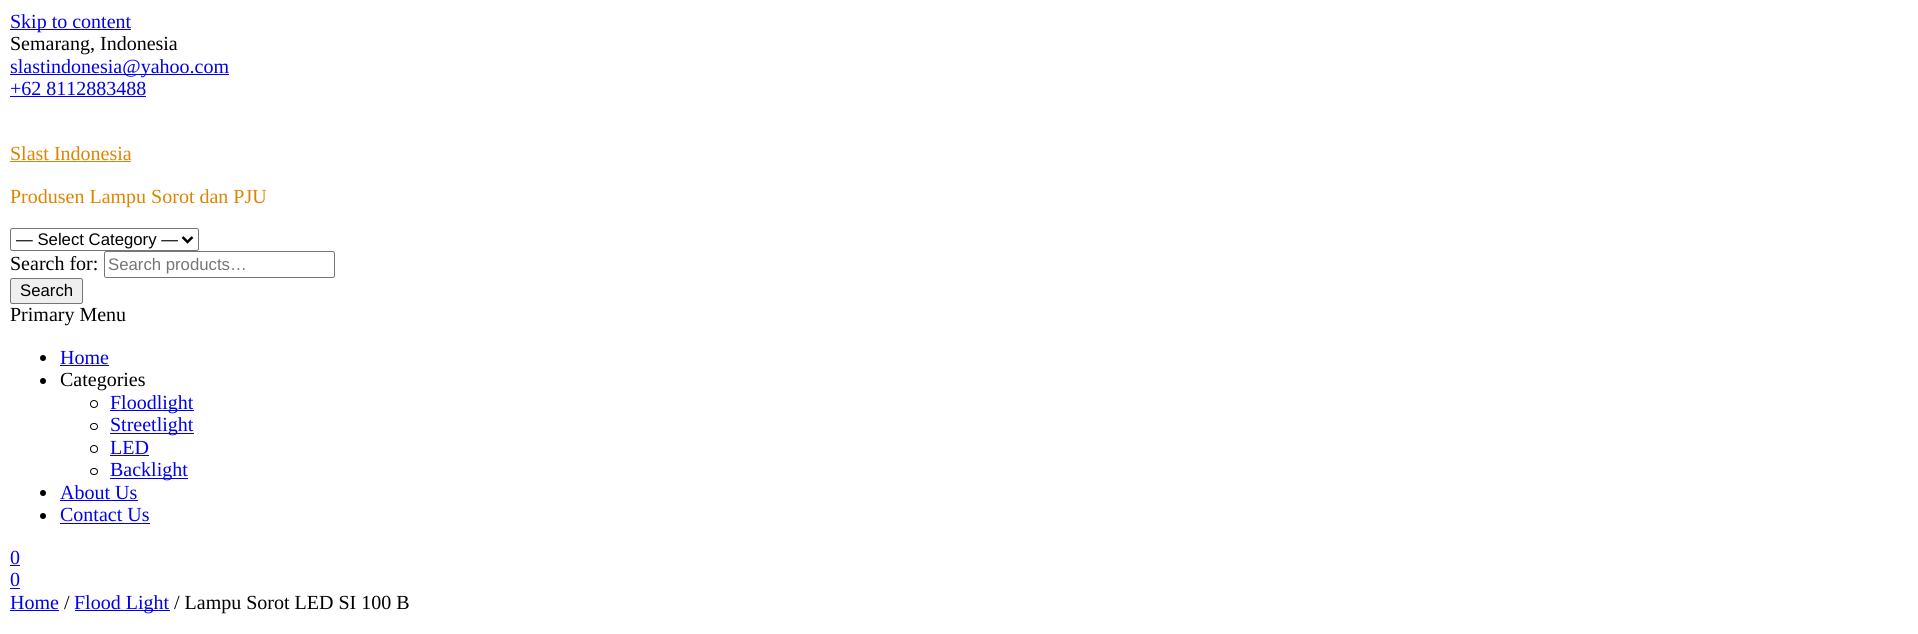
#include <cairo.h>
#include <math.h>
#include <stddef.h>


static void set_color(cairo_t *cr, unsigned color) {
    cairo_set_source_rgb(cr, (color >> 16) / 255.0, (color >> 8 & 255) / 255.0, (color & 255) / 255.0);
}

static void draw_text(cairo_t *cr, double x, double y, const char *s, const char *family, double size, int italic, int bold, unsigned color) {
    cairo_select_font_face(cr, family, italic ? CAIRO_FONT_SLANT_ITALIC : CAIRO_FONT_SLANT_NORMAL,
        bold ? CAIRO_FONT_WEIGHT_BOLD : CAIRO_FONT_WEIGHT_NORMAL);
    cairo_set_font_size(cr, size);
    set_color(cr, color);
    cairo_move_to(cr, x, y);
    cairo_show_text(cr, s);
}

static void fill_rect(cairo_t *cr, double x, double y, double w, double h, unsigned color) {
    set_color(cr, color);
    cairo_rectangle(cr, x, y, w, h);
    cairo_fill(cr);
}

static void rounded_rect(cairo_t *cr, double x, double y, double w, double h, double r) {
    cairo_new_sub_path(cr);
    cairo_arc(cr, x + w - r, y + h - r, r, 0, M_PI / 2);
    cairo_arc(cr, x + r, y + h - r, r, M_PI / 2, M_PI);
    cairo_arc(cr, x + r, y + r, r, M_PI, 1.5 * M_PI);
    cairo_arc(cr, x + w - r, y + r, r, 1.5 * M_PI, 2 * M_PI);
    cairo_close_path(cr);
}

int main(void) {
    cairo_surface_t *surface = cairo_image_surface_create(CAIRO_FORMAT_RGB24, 1918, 634);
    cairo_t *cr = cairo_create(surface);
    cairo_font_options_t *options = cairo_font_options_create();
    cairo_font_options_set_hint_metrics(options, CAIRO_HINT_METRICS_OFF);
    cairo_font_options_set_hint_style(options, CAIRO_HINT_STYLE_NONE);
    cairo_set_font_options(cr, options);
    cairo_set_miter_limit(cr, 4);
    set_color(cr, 0xFFFFFF);
    cairo_paint(cr);
    fill_rect(cr, 10, 29, 121, 1, 0x0000EE);
    draw_text(cr, 10, 28, "Skip to content", "Liberation Serif", 20, 0, 0, 0x0000EE);
    draw_text(cr, 10, 50, "Semarang, Indonesia", "Liberation Serif", 20, 0, 0, 0x000000);
    fill_rect(cr, 10, 74, 219, 1, 0x0000EE);
    draw_text(cr, 10, 73, "slastindonesia@yahoo.com", "Liberation Serif", 20, 0, 0, 0x0000EE);
    draw_text(cr, 10, 95, "+62 8112883488", "Liberation Serif", 20, 0, 0, 0x0000EE);
    fill_rect(cr, 10, 96, 136, 1, 0x0000EE);
    draw_text(cr, 10, 160, "Slast Indonesia", "Liberation Serif", 20, 0, 0, 0xDD8502);
    fill_rect(cr, 10, 161, 121, 1, 0xDD8502);
    draw_text(cr, 10, 203, "Produsen Lampu Sorot dan PJU", "Liberation Serif", 20, 0, 0, 0xDD8502);
    rounded_rect(cr, 10.5, 228.5, 188, 22, 2);
    set_color(cr, 0x767676);
    cairo_set_line_width(cr, 1);
    cairo_stroke(cr);
    cairo_new_path(cr);
    cairo_move_to(cr, 182.5, 237);
    cairo_line_to(cr, 187.5, 242);
    cairo_line_to(cr, 192.5, 237);
    set_color(cr, 0x000000);
    cairo_set_line_width(cr, 2.5);
    cairo_stroke(cr);
    draw_text(cr, 16, 245, "— Select Category —", "Liberation Sans", 16.75, 0, 0, 0x000000);
    draw_text(cr, 10, 270, "Search for:", "Liberation Serif", 20, 0, 0, 0x000000);
    rounded_rect(cr, 104.5, 251.5, 230, 26, 2);
    set_color(cr, 0x767676);
    cairo_set_line_width(cr, 1);
    cairo_stroke(cr);
    draw_text(cr, 108, 270, "Search products…", "Liberation Sans", 16.75, 0, 0, 0x757575);
    set_color(cr, 0xEFEFEF);
    rounded_rect(cr, 10.5, 278.5, 72, 25, 2);
    cairo_fill_preserve(cr);
    set_color(cr, 0x767676);
    cairo_stroke(cr);
    draw_text(cr, 20, 296, "Search", "Liberation Sans", 16.75, 0, 0, 0x000000);
    draw_text(cr, 10, 321, "Primary Menu", "Liberation Serif", 20, 0, 0, 0x000000);
    cairo_new_path(cr);
    cairo_arc(cr, 43, 358, 3, 0, 2 * M_PI);
    cairo_fill(cr);
    draw_text(cr, 60, 364, "Home", "Liberation Serif", 20, 0, 0, 0x0000EE);
    fill_rect(cr, 60, 365, 49, 1, 0x0000EE);
    set_color(cr, 0x000000);
    cairo_new_path(cr);
    cairo_arc(cr, 43, 381, 3, 0, 2 * M_PI);
    cairo_fill(cr);
    draw_text(cr, 60, 386, "Categories", "Liberation Serif", 20, 0, 0, 0x000000);
    cairo_new_path(cr);
    cairo_arc(cr, 94, 404, 3.5, 0, 2 * M_PI);
    cairo_stroke(cr);
    fill_rect(cr, 110, 410, 84, 1, 0x0000EE);
    draw_text(cr, 110, 409, "Floodlight", "Liberation Serif", 20, 0, 0, 0x0000EE);
    rounded_rect(cr, 90.5, 423.5, 7, 6, 3);
    set_color(cr, 0x000000);
    cairo_stroke(cr);
    fill_rect(cr, 110, 433, 84, 1, 0x0000EE);
    draw_text(cr, 110, 431, "Streetlight", "Liberation Serif", 20, 0, 0, 0x0000EE);
    cairo_new_path(cr);
    cairo_arc(cr, 94, 449, 3.5, 0, 2 * M_PI);
    set_color(cr, 0x000000);
    cairo_stroke(cr);
    draw_text(cr, 110, 454, "LED", "Liberation Serif", 20, 0, 0, 0x0000EE);
    fill_rect(cr, 110, 455, 39, 1, 0x0000EE);
    rounded_rect(cr, 90.5, 468.5, 7, 6, 3);
    set_color(cr, 0x000000);
    cairo_stroke(cr);
    fill_rect(cr, 110, 478, 78, 1, 0x0000EE);
    draw_text(cr, 110, 476, "Backlight", "Liberation Serif", 20, 0, 0, 0x0000EE);
    set_color(cr, 0x000000);
    cairo_new_path(cr);
    cairo_arc(cr, 43, 493, 3, 0, 2 * M_PI);
    cairo_fill(cr);
    draw_text(cr, 60, 499, "About Us", "Liberation Serif", 20, 0, 0, 0x0000EE);
    fill_rect(cr, 60, 500, 78, 1, 0x0000EE);
    set_color(cr, 0x000000);
    cairo_new_path(cr);
    cairo_arc(cr, 43, 516, 3, 0, 2 * M_PI);
    cairo_fill(cr);
    draw_text(cr, 60, 521, "Contact Us", "Liberation Serif", 20, 0, 0, 0x0000EE);
    fill_rect(cr, 60, 523, 90, 1, 0x0000EE);
    draw_text(cr, 10, 564, "0", "Liberation Serif", 20, 0, 0, 0x0000EE);
    fill_rect(cr, 10, 565, 10, 1, 0x0000EE);
    draw_text(cr, 10, 586, "0", "Liberation Serif", 20, 0, 0, 0x0000EE);
    fill_rect(cr, 10, 588, 10, 1, 0x0000EE);
    draw_text(cr, 10, 609, "Home", "Liberation Serif", 20, 0, 0, 0x0000EE);
    fill_rect(cr, 10, 610, 49, 1, 0x0000EE);
    draw_text(cr, 64, 609, "/", "Liberation Serif", 20, 0, 0, 0x000000);
    fill_rect(cr, 75, 610, 95, 1, 0x0000EE);
    draw_text(cr, 74, 609, "Flood Light", "Liberation Serif", 20, 0, 0, 0x0000EE);
    draw_text(cr, 174, 609, "/ Lampu Sorot LED SI 100 B", "Liberation Serif", 20, 0, 0, 0x000000);
    cairo_surface_write_to_png(surface, "output.png");
    cairo_font_options_destroy(options);
    cairo_destroy(cr);
    cairo_surface_destroy(surface);
    return 0;
}
